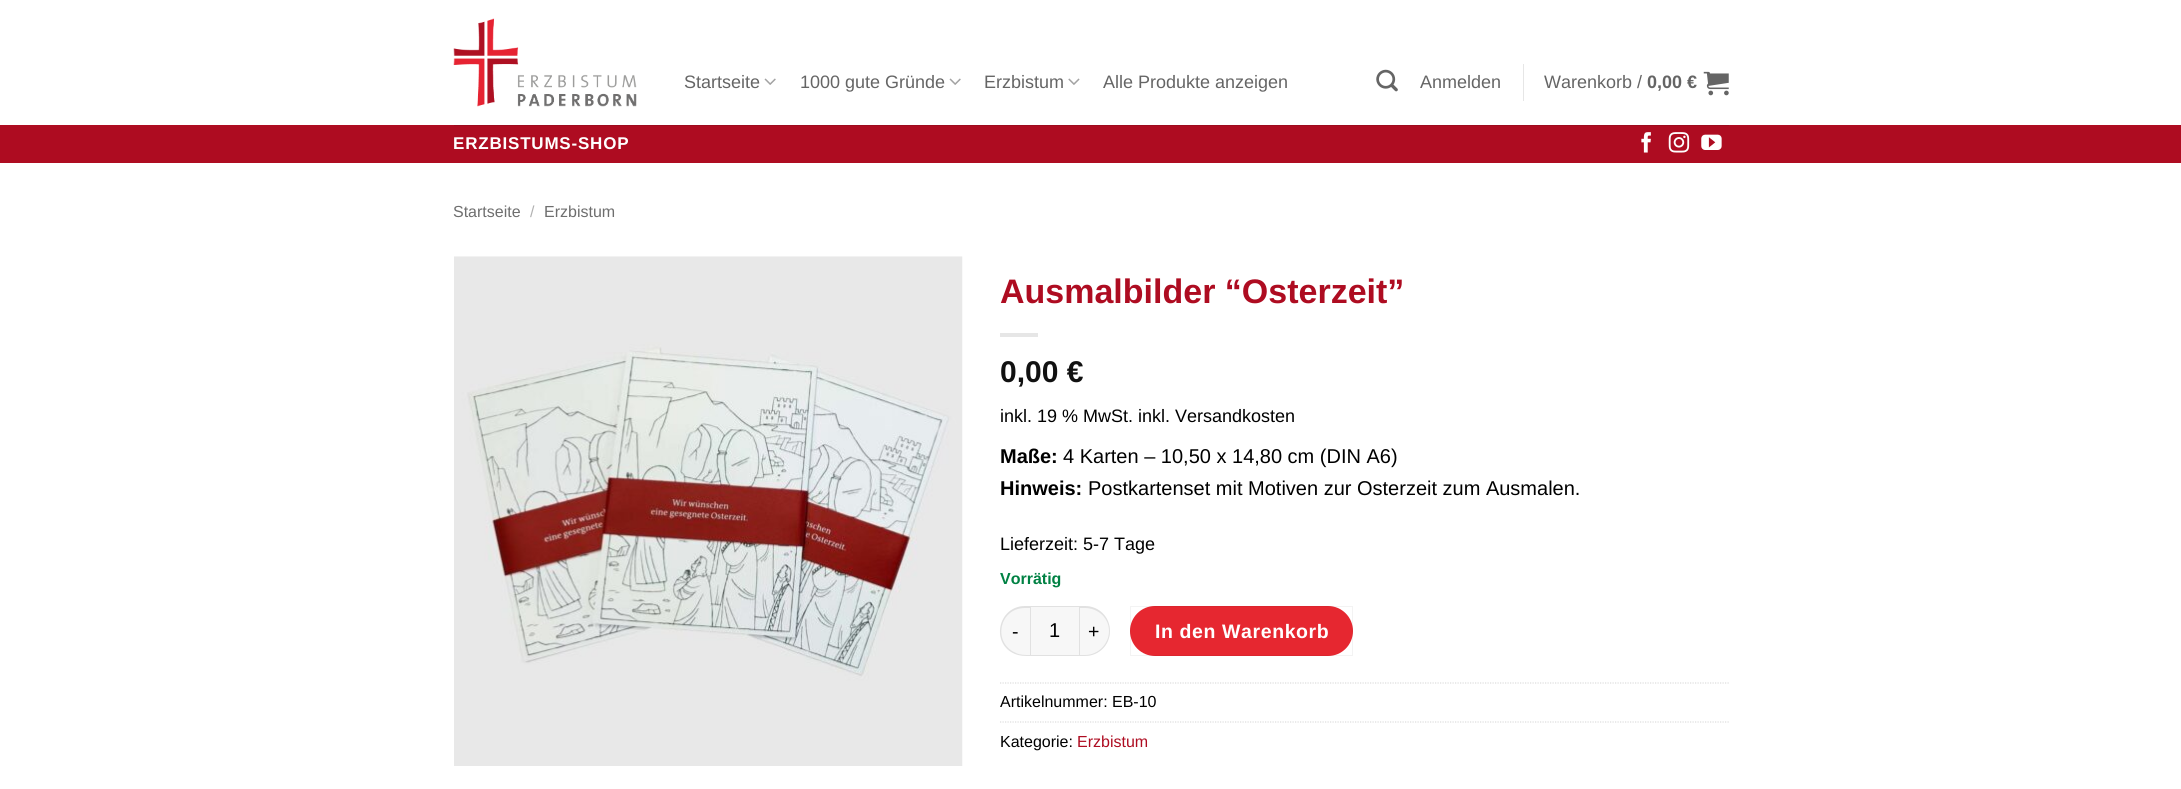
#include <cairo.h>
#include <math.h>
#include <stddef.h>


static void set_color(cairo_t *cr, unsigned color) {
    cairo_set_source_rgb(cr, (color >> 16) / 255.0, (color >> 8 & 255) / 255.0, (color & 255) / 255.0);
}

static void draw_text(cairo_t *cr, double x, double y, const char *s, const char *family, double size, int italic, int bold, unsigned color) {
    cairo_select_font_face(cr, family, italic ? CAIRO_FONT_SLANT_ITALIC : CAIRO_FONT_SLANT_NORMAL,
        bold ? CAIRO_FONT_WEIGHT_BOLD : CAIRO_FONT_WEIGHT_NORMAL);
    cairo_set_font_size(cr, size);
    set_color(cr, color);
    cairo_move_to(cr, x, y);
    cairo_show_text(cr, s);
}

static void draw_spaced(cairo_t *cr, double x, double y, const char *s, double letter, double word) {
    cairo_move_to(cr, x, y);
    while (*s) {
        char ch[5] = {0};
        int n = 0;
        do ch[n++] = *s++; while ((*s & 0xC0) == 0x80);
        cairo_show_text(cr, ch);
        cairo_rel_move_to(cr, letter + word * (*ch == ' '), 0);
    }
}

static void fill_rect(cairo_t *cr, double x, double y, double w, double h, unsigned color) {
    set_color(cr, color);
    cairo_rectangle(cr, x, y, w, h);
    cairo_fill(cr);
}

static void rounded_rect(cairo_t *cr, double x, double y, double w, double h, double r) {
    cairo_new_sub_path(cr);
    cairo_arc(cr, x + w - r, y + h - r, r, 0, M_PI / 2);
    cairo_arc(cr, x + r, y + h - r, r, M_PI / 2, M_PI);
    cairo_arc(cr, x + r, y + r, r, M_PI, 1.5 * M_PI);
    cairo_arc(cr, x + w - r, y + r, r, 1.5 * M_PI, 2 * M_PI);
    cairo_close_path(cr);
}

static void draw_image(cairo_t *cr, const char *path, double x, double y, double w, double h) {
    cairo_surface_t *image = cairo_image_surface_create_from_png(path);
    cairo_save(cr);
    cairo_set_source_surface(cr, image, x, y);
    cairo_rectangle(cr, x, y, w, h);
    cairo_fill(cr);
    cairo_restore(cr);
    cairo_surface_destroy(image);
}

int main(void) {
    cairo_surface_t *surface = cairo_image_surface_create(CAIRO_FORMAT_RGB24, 2181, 789);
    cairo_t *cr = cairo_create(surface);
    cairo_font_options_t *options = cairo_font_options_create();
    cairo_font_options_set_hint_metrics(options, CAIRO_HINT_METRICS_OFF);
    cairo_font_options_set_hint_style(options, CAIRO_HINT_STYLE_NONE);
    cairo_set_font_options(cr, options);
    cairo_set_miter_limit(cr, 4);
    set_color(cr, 0xFFFFFF);
    cairo_paint(cr);
    draw_image(cr, "assets/img1.png", 453, 18, 184, 89);
    draw_text(cr, 684, 88, "Startseite", "Liberation Sans", 18, 0, 0, 0x656565);
    draw_image(cr, "assets/img2.png", 764, 78, 12, 7);
    draw_text(cr, 800, 88, "1000 gute Gründe", "Liberation Sans", 18, 0, 0, 0x656565);
    draw_image(cr, "assets/img2.png", 949, 78, 12, 7);
    draw_text(cr, 984, 88, "Erzbistum", "Liberation Sans", 18, 0, 0, 0x656565);
    draw_image(cr, "assets/img3.png", 1068, 78, 12, 7);
    draw_text(cr, 1103, 88, "Alle Produkte anzeigen", "Liberation Sans", 18, 0, 0, 0x656565);
    draw_image(cr, "assets/img4.png", 1376, 69, 22, 23);
    draw_text(cr, 1420, 88, "Anmelden", "Liberation Sans", 18, 0, 0, 0x656565);
    fill_rect(cr, 1523, 64, 1, 37, 0xE6E6E6);
    draw_text(cr, 1544, 88, "Warenkorb /", "Liberation Sans", 18, 0, 0, 0x656565);
    draw_text(cr, 1647, 88, "0,00 €", "Liberation Sans", 18, 0, 1, 0x656565);
    draw_image(cr, "assets/img5.png", 1703, 71, 26, 25);
    fill_rect(cr, 0, 125, 2181, 38, 0xAE0C21);
    fill_rect(cr, 454, 125, 1275, 1, 0x9D0B1E);
    cairo_set_font_size(cr, 17);
    set_color(cr, 0xFFFFFF);
    draw_spaced(cr, 453, 149, "ERZBISTUMS-SHOP", 0.8, 0);
    draw_image(cr, "assets/img6.png", 1641, 132, 10, 21);
    draw_image(cr, "assets/img7.png", 1668, 132, 22, 21);
    draw_image(cr, "assets/img8.png", 1701, 134, 21, 16);
    draw_text(cr, 453, 217, "Startseite", "Liberation Sans", 16, 0, 0, 0x6E6E6E);
    draw_text(cr, 530, 217, "/", "Liberation Sans", 16, 0, 0, 0xB2B2B2);
    draw_text(cr, 544, 217, "Erzbistum", "Liberation Sans", 16, 0, 0, 0x6E6E6E);
    draw_image(cr, "assets/img9.png", 454, 256, 509, 510);
    draw_text(cr, 1000, 303, "Ausmalbilder “Osterzeit”", "Liberation Sans", 34, 0, 1, 0xAE0C21);
    fill_rect(cr, 1000, 333, 38, 4, 0xE6E6E6);
    draw_text(cr, 1000, 382, "0,00 €", "Liberation Sans", 30, 0, 1, 0x111111);
    draw_text(cr, 1000, 422, "inkl. 19 % MwSt. inkl. Versandkosten", "Liberation Sans", 18, 0, 0, 0x000000);
    draw_text(cr, 1000, 463, "Maße:", "Liberation Sans", 20, 0, 1, 0x000000);
    draw_text(cr, 1063, 463, "4 Karten – 10,50 x 14,80 cm (DIN A6)", "Liberation Sans", 20, 0, 0, 0x000000);
    draw_text(cr, 1000, 495, "Hinweis:", "Liberation Sans", 20, 0, 1, 0x000000);
    draw_text(cr, 1088, 495, "Postkartenset mit Motiven zur Osterzeit zum Ausmalen.", "Liberation Sans", 20, 0, 0, 0x000000);
    draw_text(cr, 1000, 550, "Lieferzeit: 5-7 Tage", "Liberation Sans", 18, 0, 0, 0x000000);
    draw_text(cr, 1000, 584, "Vorrätig", "Liberation Sans", 16, 0, 1, 0x008143);
    set_color(cr, 0xF7F7F7);
    cairo_new_path(cr);
    cairo_move_to(cr, 1025, 606);
    cairo_line_to(cr, 1030, 606);
    cairo_line_to(cr, 1030, 656);
    cairo_line_to(cr, 1025, 656);
    cairo_curve_to(cr, 1011, 656, 1000, 645, 1000, 631);
    cairo_curve_to(cr, 1000, 617, 1011, 606, 1025, 606);
    cairo_close_path(cr);
    cairo_fill(cr);
    cairo_set_source_rgba(cr, 0, 0, 0, 0.09);
    cairo_set_fill_rule(cr, CAIRO_FILL_RULE_EVEN_ODD);
    cairo_new_path(cr);
    cairo_move_to(cr, 1025, 606);
    cairo_line_to(cr, 1030, 606);
    cairo_line_to(cr, 1030, 656);
    cairo_curve_to(cr, 1025, 656, 1020, 656, 1015, 654);
    cairo_curve_to(cr, 990, 644, 998, 606, 1025, 606);
    cairo_close_path(cr);
    cairo_move_to(cr, 1025, 608);
    cairo_line_to(cr, 1030, 608);
    cairo_line_to(cr, 1030, 655);
    cairo_curve_to(cr, 1025, 655, 1020, 655, 1016, 653);
    cairo_curve_to(cr, 992, 643, 999, 608, 1025, 608);
    cairo_close_path(cr);
    cairo_fill(cr);
    cairo_select_font_face(cr, "Liberation Sans", CAIRO_FONT_SLANT_NORMAL, CAIRO_FONT_WEIGHT_NORMAL);
    cairo_set_font_size(cr, 19.5);
    set_color(cr, 0x000000);
    draw_spaced(cr, 1012, 638, "-", 0.6, 0);
    set_color(cr, 0xF7F7F7);
    cairo_rectangle(cr, 1030.5, 606.5, 49, 49);
    cairo_fill_preserve(cr);
    set_color(cr, 0xE1E1E1);
    cairo_set_line_width(cr, 1);
    cairo_stroke(cr);
    draw_text(cr, 1049, 637, "1", "Liberation Sans", 20, 0, 0, 0x000000);
    set_color(cr, 0xF7F7F7);
    cairo_new_path(cr);
    cairo_move_to(cr, 1080, 606);
    cairo_line_to(cr, 1085, 606);
    cairo_curve_to(cr, 1099, 606, 1110, 617, 1110, 631);
    cairo_curve_to(cr, 1110, 645, 1099, 656, 1085, 656);
    cairo_line_to(cr, 1080, 656);
    cairo_close_path(cr);
    cairo_fill(cr);
    cairo_set_source_rgba(cr, 0, 0, 0, 0.09);
    cairo_new_path(cr);
    cairo_move_to(cr, 1080, 606);
    cairo_line_to(cr, 1085, 606);
    cairo_curve_to(cr, 1099, 606, 1110, 617, 1110, 631);
    cairo_curve_to(cr, 1110, 645, 1099, 656, 1085, 656);
    cairo_line_to(cr, 1080, 656);
    cairo_close_path(cr);
    cairo_move_to(cr, 1080, 608);
    cairo_line_to(cr, 1085, 608);
    cairo_curve_to(cr, 1098, 608, 1109, 618, 1109, 631);
    cairo_curve_to(cr, 1109, 644, 1098, 655, 1085, 655);
    cairo_line_to(cr, 1080, 655);
    cairo_close_path(cr);
    cairo_fill(cr);
    cairo_set_font_size(cr, 19.5);
    set_color(cr, 0x000000);
    draw_spaced(cr, 1088, 638, "+", 0.6, 0);
    set_color(cr, 0xE62730);
    rounded_rect(cr, 1130, 606, 223, 50, 25);
    cairo_fill(cr);
    cairo_rectangle(cr, 1130.5, 606.5, 222, 49);
    cairo_set_source_rgba(cr, 0, 0, 0, 0.05);
    cairo_stroke(cr);
    cairo_select_font_face(cr, "Liberation Sans", CAIRO_FONT_SLANT_NORMAL, CAIRO_FONT_WEIGHT_BOLD);
    set_color(cr, 0xFFFFFF);
    draw_spaced(cr, 1155, 638, "In den Warenkorb", 0.6, 0);
    cairo_new_path(cr);
    cairo_move_to(cr, 1000, 683);
    cairo_line_to(cr, 1729, 683);
    set_color(cr, 0xDDDDDD);
    cairo_set_line_width(cr, 1.2);
    cairo_set_dash(cr, (double[]){1.25, 1.25}, 2, 0);
    cairo_stroke(cr);
    draw_text(cr, 1000, 707, "Artikelnummer: EB-10", "Liberation Sans", 16, 0, 0, 0x000000);
    cairo_new_path(cr);
    cairo_move_to(cr, 1000, 722);
    cairo_line_to(cr, 1729, 722);
    set_color(cr, 0xDDDDDD);
    cairo_stroke(cr);
    draw_text(cr, 1000, 747, "Kategorie:", "Liberation Sans", 16, 0, 0, 0x000000);
    draw_text(cr, 1077, 747, "Erzbistum", "Liberation Sans", 16, 0, 0, 0xAE0C21);
    cairo_surface_write_to_png(surface, "output.png");
    cairo_font_options_destroy(options);
    cairo_destroy(cr);
    cairo_surface_destroy(surface);
    return 0;
}
